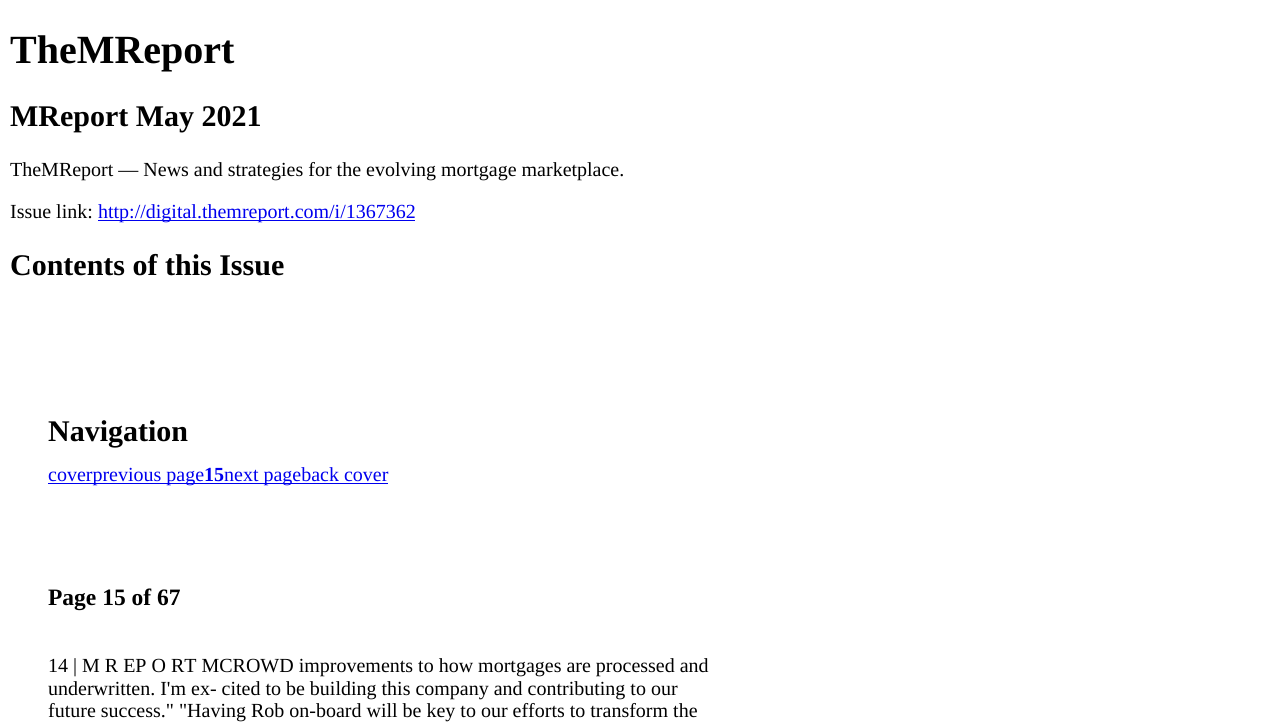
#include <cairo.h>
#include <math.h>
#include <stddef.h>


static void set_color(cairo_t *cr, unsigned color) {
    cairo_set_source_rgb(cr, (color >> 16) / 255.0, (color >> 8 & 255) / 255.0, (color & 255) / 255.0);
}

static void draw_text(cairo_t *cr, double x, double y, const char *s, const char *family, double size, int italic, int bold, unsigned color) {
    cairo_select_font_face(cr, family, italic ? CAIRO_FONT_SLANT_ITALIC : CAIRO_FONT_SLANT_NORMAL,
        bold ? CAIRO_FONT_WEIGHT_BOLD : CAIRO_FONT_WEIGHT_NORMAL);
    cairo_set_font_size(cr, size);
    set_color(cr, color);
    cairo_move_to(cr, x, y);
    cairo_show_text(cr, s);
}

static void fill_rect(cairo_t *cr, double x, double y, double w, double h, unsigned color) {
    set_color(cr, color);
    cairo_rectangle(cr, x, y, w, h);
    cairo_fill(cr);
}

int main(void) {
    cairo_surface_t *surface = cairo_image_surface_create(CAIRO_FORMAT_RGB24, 1263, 723);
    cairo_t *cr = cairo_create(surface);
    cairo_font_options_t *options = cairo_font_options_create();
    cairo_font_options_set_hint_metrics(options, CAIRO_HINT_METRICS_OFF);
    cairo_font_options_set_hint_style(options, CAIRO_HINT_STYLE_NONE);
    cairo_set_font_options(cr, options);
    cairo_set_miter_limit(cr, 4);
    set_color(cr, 0xFFFFFF);
    cairo_paint(cr);
    draw_text(cr, 10, 63, "TheMReport", "Liberation Serif", 40, 0, 1, 0x000000);
    draw_text(cr, 10, 126, "MReport May 2021", "Liberation Serif", 30, 0, 1, 0x000000);
    draw_text(cr, 10, 176, "TheMReport — News and strategies for the evolving mortgage marketplace.", "Liberation Serif", 20, 0, 0, 0x000000);
    draw_text(cr, 10, 218, "Issue link:", "Liberation Serif", 20, 0, 0, 0x000000);
    fill_rect(cr, 98, 220, 317, 1, 0x0000EE);
    draw_text(cr, 98, 218, "http://digital.themreport.com/i/1367362", "Liberation Serif", 20, 0, 0, 0x0000EE);
    draw_text(cr, 10, 275, "Contents of this Issue", "Liberation Serif", 30, 0, 1, 0x000000);
    draw_text(cr, 48, 441, "Navigation", "Liberation Serif", 30, 0, 1, 0x000000);
    fill_rect(cr, 48, 483, 340, 1, 0x0000EE);
    draw_text(cr, 48, 481, "coverprevious page", "Liberation Serif", 20, 0, 0, 0x0000EE);
    draw_text(cr, 204, 481, "15", "Liberation Serif", 20, 0, 1, 0x0000EE);
    draw_text(cr, 224, 481, "next pageback cover", "Liberation Serif", 20, 0, 0, 0x0000EE);
    draw_text(cr, 48, 605, "Page 15 of 67", "Liberation Serif", 23.5, 0, 1, 0x000000);
    draw_text(cr, 48, 672, "14 | M R EP O RT MCROWD improvements to how mortgages are processed and", "Liberation Serif", 20, 0, 0, 0x000000);
    draw_text(cr, 48, 695, "underwritten. I'm ex- cited to be building this company and contributing to our", "Liberation Serif", 20, 0, 0, 0x000000);
    draw_text(cr, 48, 717, "future success.\" \"Having Rob on-board will be key to our efforts to transform the", "Liberation Serif", 20, 0, 0, 0x000000);
    cairo_surface_write_to_png(surface, "output.png");
    cairo_font_options_destroy(options);
    cairo_destroy(cr);
    cairo_surface_destroy(surface);
    return 0;
}
